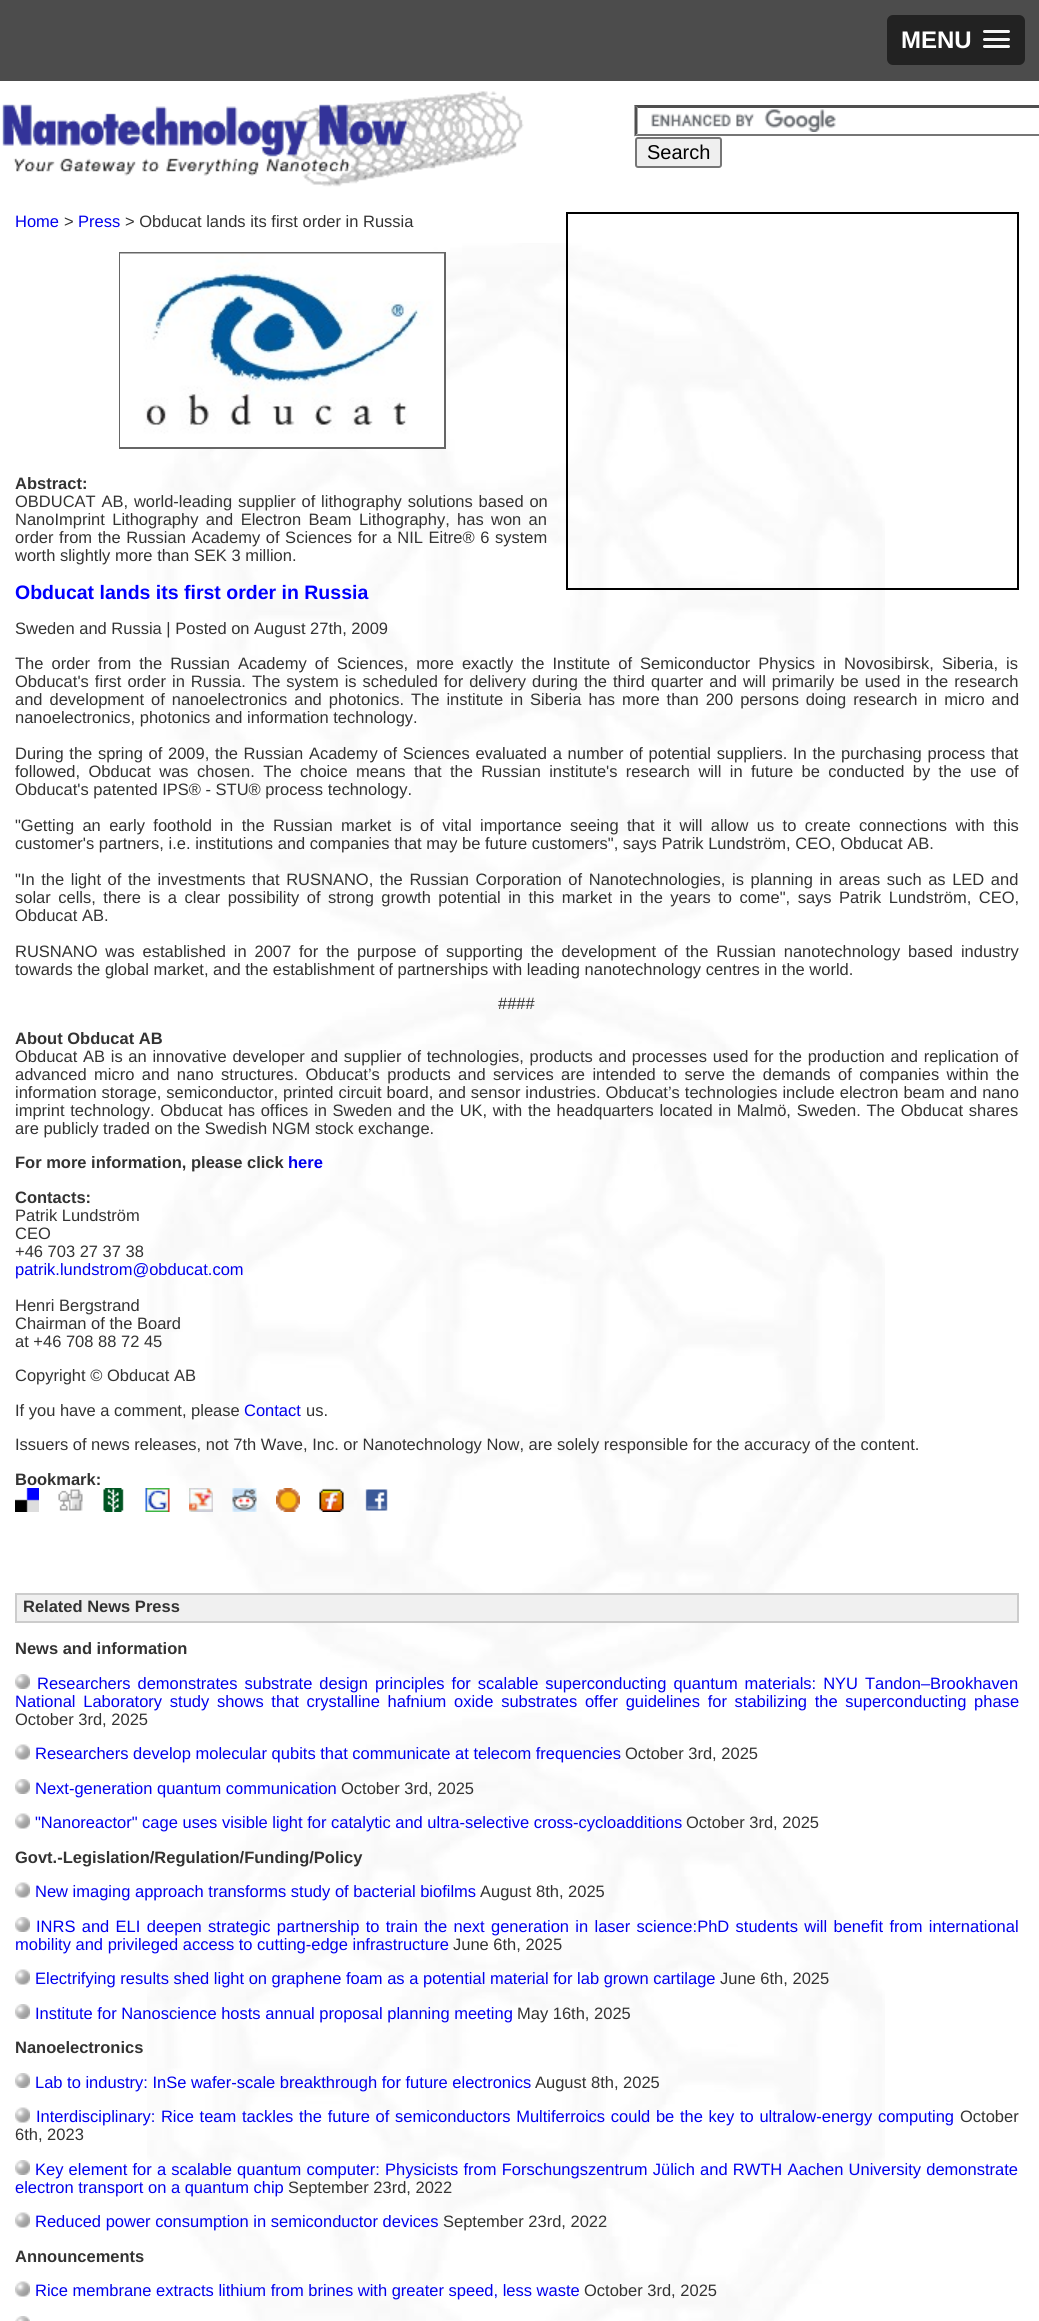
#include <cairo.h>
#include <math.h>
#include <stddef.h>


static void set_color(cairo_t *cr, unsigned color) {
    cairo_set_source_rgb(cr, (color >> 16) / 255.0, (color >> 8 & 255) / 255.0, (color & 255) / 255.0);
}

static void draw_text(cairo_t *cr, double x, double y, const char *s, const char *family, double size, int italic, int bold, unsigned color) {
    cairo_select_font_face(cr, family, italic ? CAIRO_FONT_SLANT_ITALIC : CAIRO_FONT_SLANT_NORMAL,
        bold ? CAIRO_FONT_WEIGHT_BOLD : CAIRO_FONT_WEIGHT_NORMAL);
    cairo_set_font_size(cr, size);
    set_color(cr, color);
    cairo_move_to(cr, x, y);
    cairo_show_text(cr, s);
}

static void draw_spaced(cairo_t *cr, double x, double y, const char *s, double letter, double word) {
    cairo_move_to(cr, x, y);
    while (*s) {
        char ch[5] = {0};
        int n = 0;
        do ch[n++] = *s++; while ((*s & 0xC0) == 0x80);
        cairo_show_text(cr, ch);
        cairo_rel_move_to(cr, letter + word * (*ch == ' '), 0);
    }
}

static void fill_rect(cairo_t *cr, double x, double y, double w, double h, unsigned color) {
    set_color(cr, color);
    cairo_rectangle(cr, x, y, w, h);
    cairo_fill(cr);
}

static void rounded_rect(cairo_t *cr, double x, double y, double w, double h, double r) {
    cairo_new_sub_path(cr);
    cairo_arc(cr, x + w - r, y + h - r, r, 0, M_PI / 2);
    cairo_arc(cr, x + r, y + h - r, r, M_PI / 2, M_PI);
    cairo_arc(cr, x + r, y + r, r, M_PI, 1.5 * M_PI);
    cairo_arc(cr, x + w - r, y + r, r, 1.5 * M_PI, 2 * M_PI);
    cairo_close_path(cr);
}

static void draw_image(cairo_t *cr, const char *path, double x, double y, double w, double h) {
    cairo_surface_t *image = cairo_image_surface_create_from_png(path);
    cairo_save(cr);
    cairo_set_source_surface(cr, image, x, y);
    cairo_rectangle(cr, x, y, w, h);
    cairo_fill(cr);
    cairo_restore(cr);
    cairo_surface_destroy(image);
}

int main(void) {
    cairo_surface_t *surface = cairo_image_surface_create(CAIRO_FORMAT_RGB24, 1039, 2321);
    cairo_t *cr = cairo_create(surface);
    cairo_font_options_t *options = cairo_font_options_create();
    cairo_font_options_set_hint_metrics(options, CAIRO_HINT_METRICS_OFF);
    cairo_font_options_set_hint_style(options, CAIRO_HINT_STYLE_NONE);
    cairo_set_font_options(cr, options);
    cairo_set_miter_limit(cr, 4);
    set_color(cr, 0xFFFFFF);
    cairo_paint(cr);
    fill_rect(cr, 0, 0, 1039, 81, 0x4C4C4C);
    set_color(cr, 0x222222);
    rounded_rect(cr, 887, 15, 138, 50, 6);
    cairo_fill(cr);
    draw_text(cr, 901, 48, "MENU", "Liberation Sans", 24, 0, 1, 0xFFFFFF);
    set_color(cr, 0x1A1A1A);
    cairo_new_path(cr);
    cairo_move_to(cr, 983, 33);
    cairo_curve_to(cr, 981.5, 36, 988.5, 35, 988.5, 35);
    cairo_line_to(cr, 1009, 35);
    cairo_curve_to(cr, 1010, 34.5, 1010.5, 33, 1009.5, 32);
    cairo_line_to(cr, 1008, 33);
    cairo_curve_to(cr, 1006, 33.5, 984, 33.5, 983, 33);
    cairo_close_path(cr);
    cairo_fill(cr);
    set_color(cr, 0xF5F5F5);
    rounded_rect(cr, 983, 30, 27, 3, 1.5);
    cairo_fill(cr);
    set_color(cr, 0x1A1A1A);
    cairo_new_path(cr);
    cairo_move_to(cr, 983, 40);
    cairo_curve_to(cr, 982.5, 43, 988, 42, 988.5, 42);
    cairo_line_to(cr, 1008.5, 42);
    cairo_curve_to(cr, 1010, 42, 1010.5, 40, 1009.5, 39.5);
    cairo_line_to(cr, 1008.5, 40.5);
    cairo_curve_to(cr, 1007, 41, 983.5, 40.5, 983, 40);
    cairo_close_path(cr);
    cairo_fill(cr);
    set_color(cr, 0xF5F5F5);
    rounded_rect(cr, 983, 38, 27, 3, 1.5);
    cairo_fill(cr);
    set_color(cr, 0x1A1A1A);
    cairo_new_path(cr);
    cairo_move_to(cr, 983, 48);
    cairo_curve_to(cr, 981.5, 51, 988.5, 50, 988.5, 50);
    cairo_line_to(cr, 1009, 50);
    cairo_curve_to(cr, 1010, 49.5, 1010.5, 48, 1009.5, 47);
    cairo_line_to(cr, 1008, 48);
    cairo_curve_to(cr, 1006, 48.5, 984, 48.5, 983, 48);
    cairo_close_path(cr);
    cairo_fill(cr);
    set_color(cr, 0xF5F5F5);
    rounded_rect(cr, 983, 45, 27, 3, 1.5);
    cairo_fill(cr);
    draw_image(cr, "assets/img1.png", 2, 91, 522, 96);
    draw_image(cr, "assets/img2.png", 651, 109, 185, 23);
    set_color(cr, 0x4F4F4F);
    cairo_new_path(cr);
    cairo_move_to(cr, 634, 105);
    cairo_line_to(cr, 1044, 105);
    cairo_line_to(cr, 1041, 108);
    cairo_line_to(cr, 638, 108);
    cairo_close_path(cr);
    cairo_fill(cr);
    set_color(cr, 0x767676);
    cairo_new_path(cr);
    cairo_move_to(cr, 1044, 136);
    cairo_line_to(cr, 634, 136);
    cairo_line_to(cr, 638, 134);
    cairo_line_to(cr, 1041, 134);
    cairo_close_path(cr);
    cairo_fill(cr);
    set_color(cr, 0x4F4F4F);
    cairo_new_path(cr);
    cairo_move_to(cr, 634.5, 136.5);
    cairo_line_to(cr, 634.5, 105);
    cairo_line_to(cr, 637.5, 108);
    cairo_line_to(cr, 637.5, 133.5);
    cairo_close_path(cr);
    cairo_fill(cr);
    set_color(cr, 0xEFEFEF);
    rounded_rect(cr, 636, 138, 85, 29, 2);
    cairo_fill_preserve(cr);
    set_color(cr, 0x767676);
    cairo_stroke(cr);
    draw_text(cr, 647, 159, "Search", "Liberation Sans", 20, 0, 0, 0x000000);
    draw_image(cr, "assets/img3.png", 147, 243, 738, 2078);
    draw_text(cr, 15, 227, "Home", "Liberation Sans", 16.5, 0, 0, 0x0000EE);
    draw_text(cr, 64, 227, ">", "Liberation Sans", 16.5, 0, 0, 0x333333);
    draw_text(cr, 78, 227, "Press", "Liberation Sans", 16.5, 0, 0, 0x0000EE);
    draw_text(cr, 125, 227, "> Obducat lands its first order in Russia", "Liberation Sans", 16.5, 0, 0, 0x333333);
    cairo_rectangle(cr, 567, 213, 451, 376);
    set_color(cr, 0x000000);
    cairo_stroke(cr);
    cairo_rectangle(cr, 120, 253, 325, 195);
    set_color(cr, 0x666666);
    cairo_stroke(cr);
    draw_image(cr, "assets/img4.png", 120, 253, 324, 194);
    draw_text(cr, 15, 489, "Abstract:", "Liberation Sans", 16.5, 0, 1, 0x333333);
    cairo_select_font_face(cr, "Liberation Sans", CAIRO_FONT_SLANT_NORMAL, CAIRO_FONT_WEIGHT_NORMAL);
    draw_spaced(cr, 15, 507, "OBDUCAT AB, world-leading supplier of lithography solutions based on", 0, 1.25);
    draw_spaced(cr, 15, 525, "NanoImprint Lithography and Electron Beam Lithography, has won an", 0, 2.75);
    draw_spaced(cr, 15, 543, "order from the Russian Academy of Sciences for a NIL Eitre® 6 system", 0, 1);
    draw_text(cr, 15, 561, "worth slightly more than SEK 3 million.", "Liberation Sans", 16.5, 0, 0, 0x333333);
    draw_text(cr, 15, 599, "Obducat lands its first order in Russia", "Liberation Sans", 19.5, 0, 1, 0x0000FF);
    draw_text(cr, 15, 634, "Sweden and Russia | Posted on August 27th, 2009", "Liberation Sans", 16.5, 0, 0, 0x333333);
    draw_spaced(cr, 15, 669, "The order from the Russian Academy of Sciences, more exactly the Institute of Semiconductor Physics in Novosibirsk, Siberia, is", 0, 3.5);
    draw_spaced(cr, 15, 687, "Obducat's first order in Russia. The system is scheduled for delivery during the third quarter and will primarily be used in the research", 0, 1.45);
    draw_spaced(cr, 15, 705, "and development of nanoelectronics and photonics. The institute in Siberia has more than 200 persons doing research in micro and", 0, 2.4);
    draw_text(cr, 15, 723, "nanoelectronics, photonics and information technology.", "Liberation Sans", 16.5, 0, 0, 0x333333);
    draw_spaced(cr, 15, 759, "During the spring of 2009, the Russian Academy of Sciences evaluated a number of potential suppliers. In the purchasing process that", 0, 1.1);
    draw_spaced(cr, 15, 777, "followed, Obducat was chosen. The choice means that the Russian institute's research will in future be conducted by the use of", 0, 3.8);
    draw_text(cr, 15, 795, "Obducat's patented IPS® - STU® process technology.", "Liberation Sans", 16.5, 0, 0, 0x333333);
    draw_spaced(cr, 15, 831, "\"Getting an early foothold in the Russian market is of vital importance seeing that it will allow us to create connections with this", 0, 3.8);
    draw_text(cr, 15, 849, "customer's partners, i.e. institutions and companies that may be future customers\", says Patrik Lundström, CEO, Obducat AB.", "Liberation Sans", 16.5, 0, 0, 0x333333);
    draw_spaced(cr, 15, 885, "\"In the light of the investments that RUSNANO, the Russian Corporation of Nanotechnologies, is planning in areas such as LED and", 0, 2);
    draw_spaced(cr, 15, 903, "solar cells, there is a clear possibility of strong growth potential in this market in the years to come\", says Patrik Lundström, CEO,", 0, 2.9);
    draw_text(cr, 15, 921, "Obducat AB.", "Liberation Sans", 16.5, 0, 0, 0x333333);
    draw_spaced(cr, 15, 957, "RUSNANO was established in 2007 for the purpose of supporting the development of the Russian nanotechnology based industry", 0, 3.25);
    draw_text(cr, 15, 975, "towards the global market, and the establishment of partnerships with leading nanotechnology centres in the world.", "Liberation Sans", 16.5, 0, 0, 0x333333);
    draw_text(cr, 498, 1009, "####", "Liberation Sans", 16.5, 0, 0, 0x333333);
    draw_text(cr, 15, 1044, "About Obducat AB", "Liberation Sans", 16.5, 0, 1, 0x333333);
    cairo_select_font_face(cr, "Liberation Sans", CAIRO_FONT_SLANT_NORMAL, CAIRO_FONT_WEIGHT_NORMAL);
    draw_spaced(cr, 15, 1062, "Obducat AB is an innovative developer and supplier of technologies, products and processes used for the production and replication of", 0, 1.1);
    draw_spaced(cr, 15, 1080, "advanced micro and nano structures. Obducat’s products and services are intended to serve the demands of companies within the", 0, 2.9);
    draw_spaced(cr, 15, 1098, "information storage, semiconductor, printed circuit board, and sensor industries. Obducat’s technologies include electron beam and nano", 0, 0.4);
    draw_spaced(cr, 15, 1116, "imprint technology. Obducat has offices in Sweden and the UK, with the headquarters located in Malmö, Sweden. The Obducat shares", 0, 1.1);
    draw_text(cr, 15, 1134, "are publicly traded on the Swedish NGM stock exchange.", "Liberation Sans", 16.5, 0, 0, 0x333333);
    draw_text(cr, 15, 1168, "For more information, please click", "Liberation Sans", 16.5, 0, 1, 0x333333);
    draw_text(cr, 288, 1168, "here", "Liberation Sans", 16.5, 0, 1, 0x0000EE);
    draw_text(cr, 15, 1203, "Contacts:", "Liberation Sans", 16.5, 0, 1, 0x333333);
    draw_text(cr, 15, 1221, "Patrik Lundström", "Liberation Sans", 16.5, 0, 0, 0x333333);
    draw_text(cr, 15, 1239, "CEO", "Liberation Sans", 16.5, 0, 0, 0x333333);
    draw_text(cr, 15, 1257, "+46 703 27 37 38", "Liberation Sans", 16.5, 0, 0, 0x333333);
    draw_text(cr, 15, 1275, "patrik.lundstrom@obducat.com", "Liberation Sans", 16.5, 0, 0, 0x0000EE);
    draw_text(cr, 15, 1311, "Henri Bergstrand", "Liberation Sans", 16.5, 0, 0, 0x333333);
    draw_text(cr, 15, 1329, "Chairman of the Board", "Liberation Sans", 16.5, 0, 0, 0x333333);
    draw_text(cr, 15, 1347, "at +46 708 88 72 45", "Liberation Sans", 16.5, 0, 0, 0x333333);
    draw_text(cr, 15, 1381, "Copyright © Obducat AB", "Liberation Sans", 16.5, 0, 0, 0x333333);
    draw_text(cr, 15, 1416, "If you have a comment, please", "Liberation Sans", 16.5, 0, 0, 0x333333);
    draw_text(cr, 244, 1416, "Contact", "Liberation Sans", 16.5, 0, 0, 0x0000EE);
    draw_text(cr, 306, 1416, "us.", "Liberation Sans", 16.5, 0, 0, 0x333333);
    draw_text(cr, 15, 1450, "Issuers of news releases, not 7th Wave, Inc. or Nanotechnology Now, are solely responsible for the accuracy of the content.", "Liberation Sans", 16.5, 0, 0, 0x333333);
    draw_text(cr, 15, 1485, "Bookmark:", "Liberation Sans", 16.5, 0, 1, 0x333333);
    draw_image(cr, "assets/img5.png", 15, 1488, 24, 24);
    draw_image(cr, "assets/img6.png", 58, 1489, 25, 22);
    draw_image(cr, "assets/img7.png", 103, 1488, 21, 24);
    draw_image(cr, "assets/img8.png", 145, 1488, 25, 24);
    draw_image(cr, "assets/img9.png", 189, 1488, 24, 24);
    draw_image(cr, "assets/img10.png", 232, 1488, 25, 24);
    draw_image(cr, "assets/img11.png", 276, 1488, 24, 24);
    draw_image(cr, "assets/img12.png", 319, 1488, 25, 24);
    draw_image(cr, "assets/img13.png", 365, 1489, 23, 22);
    set_color(cr, 0xF0F0F0);
    cairo_rectangle(cr, 16, 1594, 1002, 28);
    cairo_fill_preserve(cr);
    set_color(cr, 0xCCCCCC);
    cairo_stroke(cr);
    draw_text(cr, 23, 1612, "Related News Press", "Liberation Sans", 16.5, 0, 1, 0x333333);
    draw_text(cr, 15, 1654, "News and information", "Liberation Sans", 16.5, 0, 1, 0x333333);
    draw_image(cr, "assets/img14.png", 15, 1674, 15, 15);
    cairo_select_font_face(cr, "Liberation Sans", CAIRO_FONT_SLANT_NORMAL, CAIRO_FONT_WEIGHT_NORMAL);
    set_color(cr, 0x0000EE);
    draw_spaced(cr, 37, 1689, "Researchers demonstrates substrate design principles for scalable superconducting quantum materials: NYU Tandon–Brookhaven", 0, 2.4);
    draw_spaced(cr, 15, 1707, "National Laboratory study shows that crystalline hafnium oxide substrates offer guidelines for stabilizing the superconducting phase", 0, 3.1);
    draw_text(cr, 15, 1725, "October 3rd, 2025", "Liberation Sans", 16.5, 0, 0, 0x333333);
    draw_image(cr, "assets/img15.png", 15, 1744, 15, 16);
    draw_text(cr, 35, 1759, "Researchers develop molecular qubits that communicate at telecom frequencies", "Liberation Sans", 16.5, 0, 0, 0x0000EE);
    draw_text(cr, 625, 1759, "October 3rd, 2025", "Liberation Sans", 16.5, 0, 0, 0x333333);
    draw_image(cr, "assets/img14.png", 15, 1779, 15, 15);
    draw_text(cr, 35, 1794, "Next-generation quantum communication", "Liberation Sans", 16.5, 0, 0, 0x0000EE);
    draw_text(cr, 341, 1794, "October 3rd, 2025", "Liberation Sans", 16.5, 0, 0, 0x333333);
    draw_image(cr, "assets/img15.png", 15, 1813, 15, 16);
    draw_text(cr, 35, 1828, "\"Nanoreactor\" cage uses visible light for catalytic and ultra-selective cross-cycloadditions", "Liberation Sans", 16.5, 0, 0, 0x0000EE);
    draw_text(cr, 686, 1828, "October 3rd, 2025", "Liberation Sans", 16.5, 0, 0, 0x333333);
    draw_text(cr, 15, 1863, "Govt.-Legislation/Regulation/Funding/Policy", "Liberation Sans", 16.5, 0, 1, 0x333333);
    draw_image(cr, "assets/img15.png", 15, 1882, 15, 16);
    draw_text(cr, 35, 1897, "New imaging approach transforms study of bacterial biofilms", "Liberation Sans", 16.5, 0, 0, 0x0000EE);
    draw_text(cr, 480, 1897, "August 8th, 2025", "Liberation Sans", 16.5, 0, 0, 0x333333);
    draw_image(cr, "assets/img14.png", 15, 1917, 15, 15);
    set_color(cr, 0x0000EE);
    draw_spaced(cr, 36, 1932, "INRS and ELI deepen strategic partnership to train the next generation in laser science:PhD students will benefit from international", 0, 1.75);
    draw_text(cr, 15, 1950, "mobility and privileged access to cutting-edge infrastructure", "Liberation Sans", 16.5, 0, 0, 0x0000EE);
    draw_text(cr, 453, 1950, "June 6th, 2025", "Liberation Sans", 16.5, 0, 0, 0x333333);
    draw_image(cr, "assets/img15.png", 15, 1969, 15, 16);
    draw_text(cr, 35, 1984, "Electrifying results shed light on graphene foam as a potential material for lab grown cartilage", "Liberation Sans", 16.5, 0, 0, 0x0000EE);
    draw_text(cr, 720, 1984, "June 6th, 2025", "Liberation Sans", 16.5, 0, 0, 0x333333);
    draw_image(cr, "assets/img14.png", 15, 2004, 15, 15);
    draw_text(cr, 35, 2019, "Institute for Nanoscience hosts annual proposal planning meeting", "Liberation Sans", 16.5, 0, 0, 0x0000EE);
    draw_text(cr, 517, 2019, "May 16th, 2025", "Liberation Sans", 16.5, 0, 0, 0x333333);
    draw_text(cr, 15, 2053, "Nanoelectronics", "Liberation Sans", 16.5, 0, 1, 0x333333);
    draw_image(cr, "assets/img14.png", 15, 2073, 15, 15);
    draw_text(cr, 35, 2088, "Lab to industry: InSe wafer-scale breakthrough for future electronics", "Liberation Sans", 16.5, 0, 0, 0x0000EE);
    draw_text(cr, 535, 2088, "August 8th, 2025", "Liberation Sans", 16.5, 0, 0, 0x333333);
    draw_image(cr, "assets/img15.png", 15, 2107, 15, 16);
    set_color(cr, 0x0000EE);
    draw_spaced(cr, 36, 2122, "Interdisciplinary: Rice team tackles the future of semiconductors Multiferroics could be the key to ultralow-energy computing", 0, 1.1);
    draw_text(cr, 960, 2122, "October", "Liberation Sans", 16.5, 0, 0, 0x333333);
    draw_text(cr, 15, 2140, "6th, 2023", "Liberation Sans", 16.5, 0, 0, 0x333333);
    draw_image(cr, "assets/img14.png", 15, 2160, 15, 15);
    set_color(cr, 0x0000EE);
    draw_spaced(cr, 35, 2175, "Key element for a scalable quantum computer: Physicists from Forschungszentrum Jülich and RWTH Aachen University demonstrate", 0, 0.6);
    draw_text(cr, 15, 2193, "electron transport on a quantum chip", "Liberation Sans", 16.5, 0, 0, 0x0000EE);
    draw_text(cr, 288, 2193, "September 23rd, 2022", "Liberation Sans", 16.5, 0, 0, 0x333333);
    draw_image(cr, "assets/img15.png", 15, 2212, 15, 16);
    draw_text(cr, 35, 2227, "Reduced power consumption in semiconductor devices", "Liberation Sans", 16.5, 0, 0, 0x0000EE);
    draw_text(cr, 443, 2227, "September 23rd, 2022", "Liberation Sans", 16.5, 0, 0, 0x333333);
    draw_text(cr, 15, 2262, "Announcements", "Liberation Sans", 16.5, 0, 1, 0x333333);
    draw_image(cr, "assets/img15.png", 15, 2281, 15, 16);
    draw_text(cr, 35, 2296, "Rice membrane extracts lithium from brines with greater speed, less waste", "Liberation Sans", 16.5, 0, 0, 0x0000EE);
    draw_text(cr, 584, 2296, "October 3rd, 2025", "Liberation Sans", 16.5, 0, 0, 0x333333);
    draw_image(cr, "assets/img16.png", 15, 2316, 15, 5);
    cairo_surface_write_to_png(surface, "output.png");
    cairo_font_options_destroy(options);
    cairo_destroy(cr);
    cairo_surface_destroy(surface);
    return 0;
}
